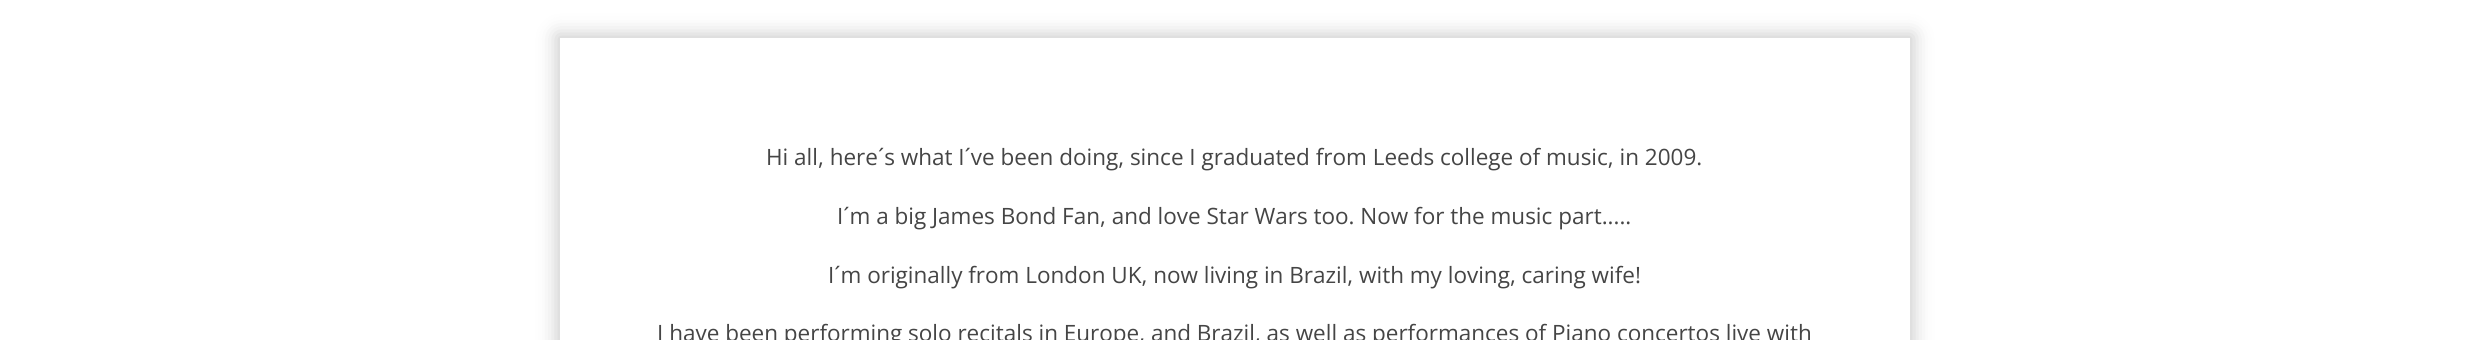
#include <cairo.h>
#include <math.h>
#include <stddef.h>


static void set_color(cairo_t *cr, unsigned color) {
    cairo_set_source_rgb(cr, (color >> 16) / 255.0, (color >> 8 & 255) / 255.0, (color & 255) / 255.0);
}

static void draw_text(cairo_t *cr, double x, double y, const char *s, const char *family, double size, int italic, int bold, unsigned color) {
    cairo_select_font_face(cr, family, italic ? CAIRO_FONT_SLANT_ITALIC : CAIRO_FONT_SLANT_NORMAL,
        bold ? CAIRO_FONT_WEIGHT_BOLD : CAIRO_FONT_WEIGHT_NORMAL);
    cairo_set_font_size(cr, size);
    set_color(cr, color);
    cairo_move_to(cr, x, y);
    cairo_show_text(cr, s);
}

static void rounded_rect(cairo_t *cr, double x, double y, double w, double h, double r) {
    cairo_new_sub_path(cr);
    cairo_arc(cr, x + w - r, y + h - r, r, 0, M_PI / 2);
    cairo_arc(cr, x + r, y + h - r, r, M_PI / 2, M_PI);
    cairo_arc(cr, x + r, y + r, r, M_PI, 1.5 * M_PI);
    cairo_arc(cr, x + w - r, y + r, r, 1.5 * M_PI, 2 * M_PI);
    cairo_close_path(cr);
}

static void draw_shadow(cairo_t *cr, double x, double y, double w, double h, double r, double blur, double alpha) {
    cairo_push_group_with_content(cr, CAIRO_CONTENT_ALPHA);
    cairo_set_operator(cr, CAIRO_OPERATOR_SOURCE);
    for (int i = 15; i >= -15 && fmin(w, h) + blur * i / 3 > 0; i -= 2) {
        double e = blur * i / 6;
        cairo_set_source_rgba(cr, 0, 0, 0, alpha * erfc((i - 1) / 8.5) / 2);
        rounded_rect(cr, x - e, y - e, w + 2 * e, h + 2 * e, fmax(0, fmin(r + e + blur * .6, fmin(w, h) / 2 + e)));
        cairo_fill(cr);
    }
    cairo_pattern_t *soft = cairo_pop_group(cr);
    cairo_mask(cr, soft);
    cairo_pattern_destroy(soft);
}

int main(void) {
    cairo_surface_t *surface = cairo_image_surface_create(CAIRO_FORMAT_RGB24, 2468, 340);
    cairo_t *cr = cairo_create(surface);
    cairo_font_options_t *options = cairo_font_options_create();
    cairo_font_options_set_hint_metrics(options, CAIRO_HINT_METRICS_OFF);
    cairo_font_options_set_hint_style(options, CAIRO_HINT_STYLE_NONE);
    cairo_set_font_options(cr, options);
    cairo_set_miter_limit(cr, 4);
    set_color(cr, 0xFFFFFF);
    cairo_paint(cr);
    cairo_save(cr);
    cairo_set_fill_rule(cr, CAIRO_FILL_RULE_EVEN_ODD);
    cairo_new_path(cr);
    cairo_move_to(cr, 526, 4);
    cairo_line_to(cr, 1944, 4);
    cairo_line_to(cr, 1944, 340);
    cairo_line_to(cr, 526, 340);
    cairo_close_path(cr);
    cairo_move_to(cr, 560, 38);
    cairo_line_to(cr, 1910, 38);
    cairo_line_to(cr, 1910, 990);
    cairo_line_to(cr, 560, 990);
    cairo_close_path(cr);
    cairo_clip(cr);
    set_color(cr, 0x000000);
    draw_shadow(cr, 556, 34, 1358, 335, 0, 9.5, 0.2);
    cairo_restore(cr);
    draw_text(cr, 766, 165, "Hi all, here´s what I´ve been doing, since I graduated from Leeds college of music, in 2009.", "Open Sans", 22.5, 0, 0, 0x454545);
    draw_text(cr, 837, 224, "I´m a big James Bond Fan, and love Star Wars too. Now for the music part.....", "Open Sans", 22.5, 0, 0, 0x454545);
    draw_text(cr, 828, 283, "I´m originally from London UK, now living in Brazil, with my loving, caring wife!", "Open Sans", 22.5, 0, 0, 0x454545);
    draw_text(cr, 657, 341, "I have been performing solo recitals in Europe, and Brazil, as well as performances of Piano concertos live with", "Open Sans", 22.5, 0, 0, 0x454545);
    cairo_surface_write_to_png(surface, "output.png");
    cairo_font_options_destroy(options);
    cairo_destroy(cr);
    cairo_surface_destroy(surface);
    return 0;
}
